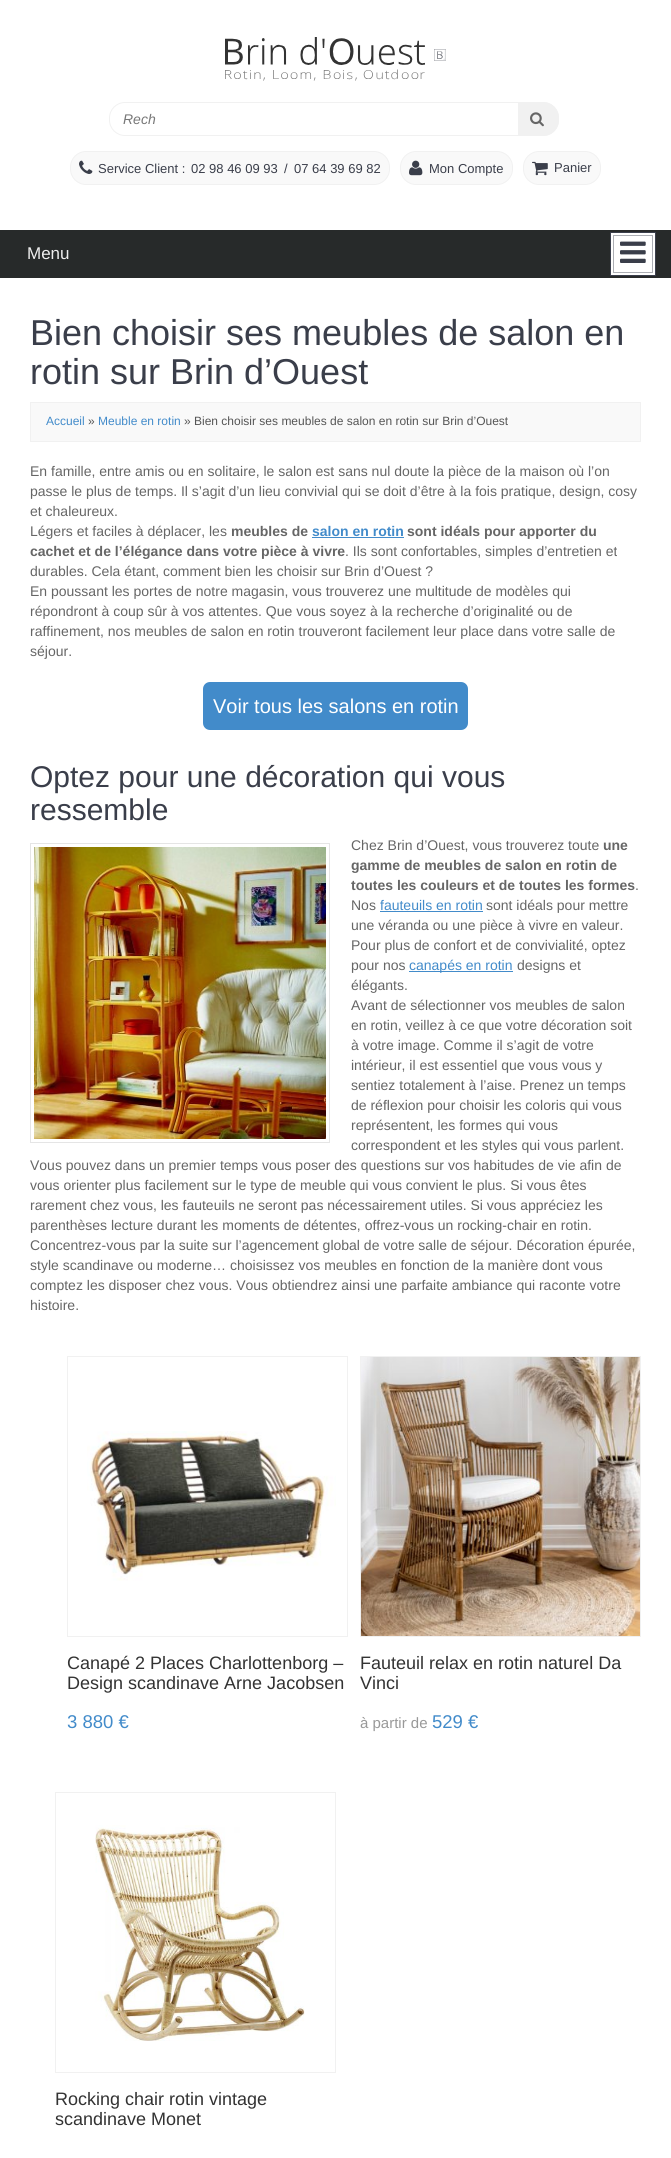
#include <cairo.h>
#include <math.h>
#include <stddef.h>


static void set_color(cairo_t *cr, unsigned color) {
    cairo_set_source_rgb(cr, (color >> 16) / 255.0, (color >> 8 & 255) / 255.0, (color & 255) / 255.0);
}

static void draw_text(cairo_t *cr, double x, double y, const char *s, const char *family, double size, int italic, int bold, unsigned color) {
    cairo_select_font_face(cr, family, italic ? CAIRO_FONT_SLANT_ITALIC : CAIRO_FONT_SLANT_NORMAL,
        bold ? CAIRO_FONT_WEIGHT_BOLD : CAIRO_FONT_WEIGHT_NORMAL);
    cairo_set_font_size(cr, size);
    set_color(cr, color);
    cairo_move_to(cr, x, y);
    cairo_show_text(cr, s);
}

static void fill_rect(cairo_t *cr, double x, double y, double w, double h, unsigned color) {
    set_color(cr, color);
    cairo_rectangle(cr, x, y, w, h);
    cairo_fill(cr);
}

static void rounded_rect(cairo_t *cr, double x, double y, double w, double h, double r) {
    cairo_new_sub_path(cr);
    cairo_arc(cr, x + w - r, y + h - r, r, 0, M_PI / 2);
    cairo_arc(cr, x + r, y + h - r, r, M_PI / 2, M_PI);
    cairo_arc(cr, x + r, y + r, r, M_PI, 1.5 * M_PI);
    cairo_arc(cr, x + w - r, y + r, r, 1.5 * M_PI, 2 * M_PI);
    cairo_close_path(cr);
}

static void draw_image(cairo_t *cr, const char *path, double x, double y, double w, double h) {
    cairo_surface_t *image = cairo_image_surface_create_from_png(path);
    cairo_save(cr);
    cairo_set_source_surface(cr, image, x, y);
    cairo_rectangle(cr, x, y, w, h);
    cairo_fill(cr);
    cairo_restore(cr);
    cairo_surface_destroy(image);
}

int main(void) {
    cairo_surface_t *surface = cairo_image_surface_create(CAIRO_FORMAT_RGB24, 671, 2158);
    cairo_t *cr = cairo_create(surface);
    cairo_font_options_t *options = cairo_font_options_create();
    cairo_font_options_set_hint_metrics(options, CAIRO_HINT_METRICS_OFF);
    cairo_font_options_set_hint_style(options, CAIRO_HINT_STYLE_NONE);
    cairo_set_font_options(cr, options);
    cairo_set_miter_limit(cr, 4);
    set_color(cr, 0xFFFFFF);
    cairo_paint(cr);
    draw_image(cr, "assets/img1.png", 225, 37, 221, 44);
    rounded_rect(cr, 109.5, 102.5, 449, 33, 15.5);
    set_color(cr, 0xF1F1F1);
    cairo_set_line_width(cr, 1);
    cairo_stroke(cr);
    draw_text(cr, 123, 124, "Rech", "Liberation Sans", 14, 1, 0, 0x777777);
    set_color(cr, 0xF1F1F1);
    cairo_new_path(cr);
    cairo_move_to(cr, 518, 102);
    cairo_line_to(cr, 543, 102);
    cairo_curve_to(cr, 552, 102, 559, 109, 559, 118);
    cairo_line_to(cr, 559, 120);
    cairo_curve_to(cr, 559, 129, 552, 136, 543, 136);
    cairo_line_to(cr, 518, 136);
    cairo_close_path(cr);
    cairo_fill(cr);
    draw_image(cr, "assets/img2.png", 530, 112, 14, 15);
    set_color(cr, 0xF9F9F9);
    rounded_rect(cr, 70.5, 151.5, 319, 33, 15.5);
    cairo_fill_preserve(cr);
    set_color(cr, 0xF1F1F1);
    cairo_stroke(cr);
    draw_image(cr, "assets/img3.png", 79, 160, 14, 14);
    draw_text(cr, 98, 173, "Service Client :", "Liberation Sans", 13, 0, 0, 0x3A3E4A);
    draw_text(cr, 191, 173, "02 98 46 09 93", "Liberation Sans", 13, 0, 0, 0x3A3E4A);
    draw_text(cr, 284, 173, "/", "Liberation Sans", 13, 0, 0, 0x3A3E4A);
    draw_text(cr, 294, 173, "07 64 39 69 82", "Liberation Sans", 13, 0, 0, 0x3A3E4A);
    set_color(cr, 0xF9F9F9);
    rounded_rect(cr, 400.5, 151.5, 112, 33, 15.5);
    cairo_fill_preserve(cr);
    set_color(cr, 0xF1F1F1);
    cairo_stroke(cr);
    draw_image(cr, "assets/img4.png", 409, 160, 14, 16);
    draw_text(cr, 429, 173, "Mon Compte", "Liberation Sans", 13, 0, 0, 0x3A3E4A);
    set_color(cr, 0xF9F9F9);
    rounded_rect(cr, 523.5, 151.5, 77, 33, 15.5);
    cairo_fill_preserve(cr);
    set_color(cr, 0xF1F1F1);
    cairo_stroke(cr);
    draw_image(cr, "assets/img5.png", 532, 161, 16, 15);
    draw_text(cr, 554, 172, "Panier", "Liberation Sans", 13, 0, 0, 0x3A3E4A);
    fill_rect(cr, 0, 230, 671, 48, 0x272A2A);
    draw_text(cr, 27, 259, "Menu", "Liberation Sans", 17, 0, 0, 0xEEEEEE);
    set_color(cr, 0xFFFFFF);
    cairo_rectangle(cr, 612, 234, 42, 40);
    cairo_fill_preserve(cr);
    set_color(cr, 0xACAEB4);
    cairo_set_line_width(cr, 4);
    cairo_stroke(cr);
    cairo_rectangle(cr, 611.5, 233.5, 43, 41);
    set_color(cr, 0xFFFFFF);
    cairo_set_line_width(cr, 3);
    cairo_stroke(cr);
    cairo_rectangle(cr, 610.5, 232.5, 45, 43);
    set_color(cr, 0x3B3F4C);
    cairo_set_line_width(cr, 1);
    cairo_stroke(cr);
    draw_image(cr, "assets/img6.png", 620, 241, 26, 22);
    draw_text(cr, 30, 345, "Bien choisir ses meubles de salon en", "Liberation Sans", 36, 0, 0, 0x3A3E4A);
    draw_text(cr, 30, 384, "rotin sur Brin d’Ouest", "Liberation Sans", 36, 0, 0, 0x3A3E4A);
    set_color(cr, 0xF9F9F9);
    cairo_rectangle(cr, 30.5, 402.5, 610, 39);
    cairo_fill_preserve(cr);
    set_color(cr, 0xF1F1F1);
    cairo_stroke(cr);
    draw_text(cr, 46, 425, "Accueil", "Liberation Sans", 12, 0, 0, 0x428BCA);
    draw_text(cr, 88, 425, "»", "Liberation Sans", 12, 0, 0, 0x555555);
    draw_text(cr, 98, 425, "Meuble en rotin", "Liberation Sans", 12, 0, 0, 0x428BCA);
    draw_text(cr, 184, 425, "» Bien choisir ses meubles de salon en rotin sur Brin d’Ouest", "Liberation Sans", 12, 0, 0, 0x555555);
    draw_text(cr, 30, 476, "En famille, entre amis ou en solitaire, le salon est sans nul doute la pièce de la maison où l’on", "Liberation Sans", 14, 0, 0, 0x666666);
    draw_text(cr, 30, 496, "passe le plus de temps. Il s’agit d’un lieu convivial qui se doit d’être à la fois pratique, design, cosy", "Liberation Sans", 14, 0, 0, 0x666666);
    draw_text(cr, 30, 516, "et chaleureux.", "Liberation Sans", 14, 0, 0, 0x666666);
    draw_text(cr, 30, 536, "Légers et faciles à déplacer, les", "Liberation Sans", 14, 0, 0, 0x666666);
    draw_text(cr, 231, 536, "meubles de", "Liberation Sans", 14, 0, 1, 0x666666);
    draw_text(cr, 312, 536, "salon en rotin", "Liberation Sans", 14, 0, 1, 0x428BCA);
    fill_rect(cr, 312, 537, 92, 1, 0x428BCA);
    draw_text(cr, 407, 536, "sont idéals pour apporter du", "Liberation Sans", 14, 0, 1, 0x666666);
    draw_text(cr, 30, 556, "cachet et de l’élégance dans votre pièce à vivre", "Liberation Sans", 14, 0, 1, 0x666666);
    draw_text(cr, 345, 556, ". Ils sont confortables, simples d’entretien et", "Liberation Sans", 14, 0, 0, 0x666666);
    draw_text(cr, 30, 576, "durables. Cela étant, comment bien les choisir sur Brin d’Ouest ?", "Liberation Sans", 14, 0, 0, 0x666666);
    draw_text(cr, 30, 596, "En poussant les portes de notre magasin, vous trouverez une multitude de modèles qui", "Liberation Sans", 14, 0, 0, 0x666666);
    draw_text(cr, 30, 616, "répondront à coup sûr à vos attentes. Que vous soyez à la recherche d’originalité ou de", "Liberation Sans", 14, 0, 0, 0x666666);
    draw_text(cr, 30, 636, "raffinement, nos meubles de salon en rotin trouveront facilement leur place dans votre salle de", "Liberation Sans", 14, 0, 0, 0x666666);
    draw_text(cr, 30, 656, "séjour.", "Liberation Sans", 14, 0, 0, 0x666666);
    set_color(cr, 0x428BCA);
    rounded_rect(cr, 203, 682, 265, 48, 7);
    cairo_fill(cr);
    draw_text(cr, 213, 713, "Voir tous les salons en rotin", "Liberation Sans", 20, 0, 0, 0xFFFFFF);
    draw_text(cr, 30, 787, "Optez pour une décoration qui vous", "Liberation Sans", 30, 0, 0, 0x3A3E4A);
    draw_text(cr, 30, 820, "ressemble", "Liberation Sans", 30, 0, 0, 0x3A3E4A);
    cairo_rectangle(cr, 30.5, 843.5, 299, 299);
    set_color(cr, 0xE5E5E5);
    cairo_stroke(cr);
    draw_image(cr, "assets/img7.png", 34, 847, 292, 292);
    draw_text(cr, 351, 850, "Chez Brin d’Ouest, vous trouverez toute", "Liberation Sans", 14, 0, 0, 0x666666);
    draw_text(cr, 603, 850, "une", "Liberation Sans", 14, 0, 1, 0x666666);
    draw_text(cr, 351, 870, "gamme de meubles de salon en rotin de", "Liberation Sans", 14, 0, 1, 0x666666);
    draw_text(cr, 351, 890, "toutes les couleurs et de toutes les formes", "Liberation Sans", 14, 0, 1, 0x666666);
    draw_text(cr, 635, 890, ".", "Liberation Sans", 14, 0, 0, 0x666666);
    draw_text(cr, 351, 910, "Nos", "Liberation Sans", 14, 0, 0, 0x666666);
    draw_text(cr, 380, 910, "fauteuils en rotin", "Liberation Sans", 14, 0, 0, 0x428BCA);
    fill_rect(cr, 380, 911, 103, 1, 0x428BCA);
    draw_text(cr, 486, 910, "sont idéals pour mettre", "Liberation Sans", 14, 0, 0, 0x666666);
    draw_text(cr, 351, 930, "une véranda ou une pièce à vivre en valeur.", "Liberation Sans", 14, 0, 0, 0x666666);
    draw_text(cr, 351, 950, "Pour plus de confort et de convivialité, optez", "Liberation Sans", 14, 0, 0, 0x666666);
    draw_text(cr, 351, 970, "pour nos", "Liberation Sans", 14, 0, 0, 0x666666);
    fill_rect(cr, 409, 971, 104, 1, 0x428BCA);
    draw_text(cr, 409, 970, "canapés en rotin", "Liberation Sans", 14, 0, 0, 0x428BCA);
    draw_text(cr, 517, 970, "designs et", "Liberation Sans", 14, 0, 0, 0x666666);
    draw_text(cr, 351, 990, "élégants.", "Liberation Sans", 14, 0, 0, 0x666666);
    draw_text(cr, 351, 1010, "Avant de sélectionner vos meubles de salon", "Liberation Sans", 14, 0, 0, 0x666666);
    draw_text(cr, 351, 1030, "en rotin, veillez à ce que votre décoration soit", "Liberation Sans", 14, 0, 0, 0x666666);
    draw_text(cr, 351, 1050, "à votre image. Comme il s’agit de votre", "Liberation Sans", 14, 0, 0, 0x666666);
    draw_text(cr, 351, 1070, "intérieur, il est essentiel que vous vous y", "Liberation Sans", 14, 0, 0, 0x666666);
    draw_text(cr, 351, 1090, "sentiez totalement à l’aise. Prenez un temps", "Liberation Sans", 14, 0, 0, 0x666666);
    draw_text(cr, 351, 1110, "de réflexion pour choisir les coloris qui vous", "Liberation Sans", 14, 0, 0, 0x666666);
    draw_text(cr, 351, 1130, "représentent, les formes qui vous", "Liberation Sans", 14, 0, 0, 0x666666);
    draw_text(cr, 351, 1150, "correspondent et les styles qui vous parlent.", "Liberation Sans", 14, 0, 0, 0x666666);
    draw_text(cr, 30, 1170, "Vous pouvez dans un premier temps vous poser des questions sur vos habitudes de vie afin de", "Liberation Sans", 14, 0, 0, 0x666666);
    draw_text(cr, 30, 1190, "vous orienter plus facilement sur le type de meuble qui vous convient le plus. Si vous êtes", "Liberation Sans", 14, 0, 0, 0x666666);
    draw_text(cr, 30, 1210, "rarement chez vous, les fauteuils ne seront pas nécessairement utiles. Si vous appréciez les", "Liberation Sans", 14, 0, 0, 0x666666);
    draw_text(cr, 30, 1230, "parenthèses lecture durant les moments de détentes, offrez-vous un rocking-chair en rotin.", "Liberation Sans", 14, 0, 0, 0x666666);
    draw_text(cr, 30, 1250, "Concentrez-vous par la suite sur l’agencement global de votre salle de séjour. Décoration épurée,", "Liberation Sans", 14, 0, 0, 0x666666);
    draw_text(cr, 30, 1270, "style scandinave ou moderne… choisissez vos meubles en fonction de la manière dont vous", "Liberation Sans", 14, 0, 0, 0x666666);
    draw_text(cr, 30, 1290, "comptez les disposer chez vous. Vous obtiendrez ainsi une parfaite ambiance qui raconte votre", "Liberation Sans", 14, 0, 0, 0x666666);
    draw_text(cr, 30, 1310, "histoire.", "Liberation Sans", 14, 0, 0, 0x666666);
    cairo_rectangle(cr, 67.5, 1356.5, 280, 280);
    set_color(cr, 0xF1F1F1);
    cairo_stroke(cr);
    draw_image(cr, "assets/img8.png", 87, 1431, 249, 150);
    draw_text(cr, 67, 1669, "Canapé 2 Places Charlottenborg –", "Liberation Sans", 18, 0, 0, 0x333333);
    draw_text(cr, 67, 1689, "Design scandinave Arne Jacobsen", "Liberation Sans", 18, 0, 0, 0x333333);
    draw_text(cr, 67, 1728, "3 880 €", "Liberation Sans", 18.5, 0, 0, 0x428BCA);
    cairo_rectangle(cr, 360.5, 1356.5, 280, 280);
    set_color(cr, 0xF1F1F1);
    cairo_stroke(cr);
    draw_image(cr, "assets/img9.png", 361, 1357, 279, 279);
    draw_text(cr, 360, 1669, "Fauteuil relax en rotin naturel Da", "Liberation Sans", 18, 0, 0, 0x333333);
    draw_text(cr, 360, 1689, "Vinci", "Liberation Sans", 18, 0, 0, 0x333333);
    draw_text(cr, 360, 1728, "à partir de", "Liberation Sans", 15, 0, 0, 0x999999);
    draw_text(cr, 432, 1728, "529 €", "Liberation Sans", 18.5, 0, 0, 0x428BCA);
    cairo_rectangle(cr, 55.5, 1792.5, 280, 280);
    set_color(cr, 0xF1F1F1);
    cairo_stroke(cr);
    draw_image(cr, "assets/img10.png", 95, 1825, 210, 216);
    draw_text(cr, 55, 2105, "Rocking chair rotin vintage", "Liberation Sans", 18, 0, 0, 0x333333);
    draw_text(cr, 55, 2125, "scandinave Monet", "Liberation Sans", 18, 0, 0, 0x333333);
    cairo_surface_write_to_png(surface, "output.png");
    cairo_font_options_destroy(options);
    cairo_destroy(cr);
    cairo_surface_destroy(surface);
    return 0;
}
